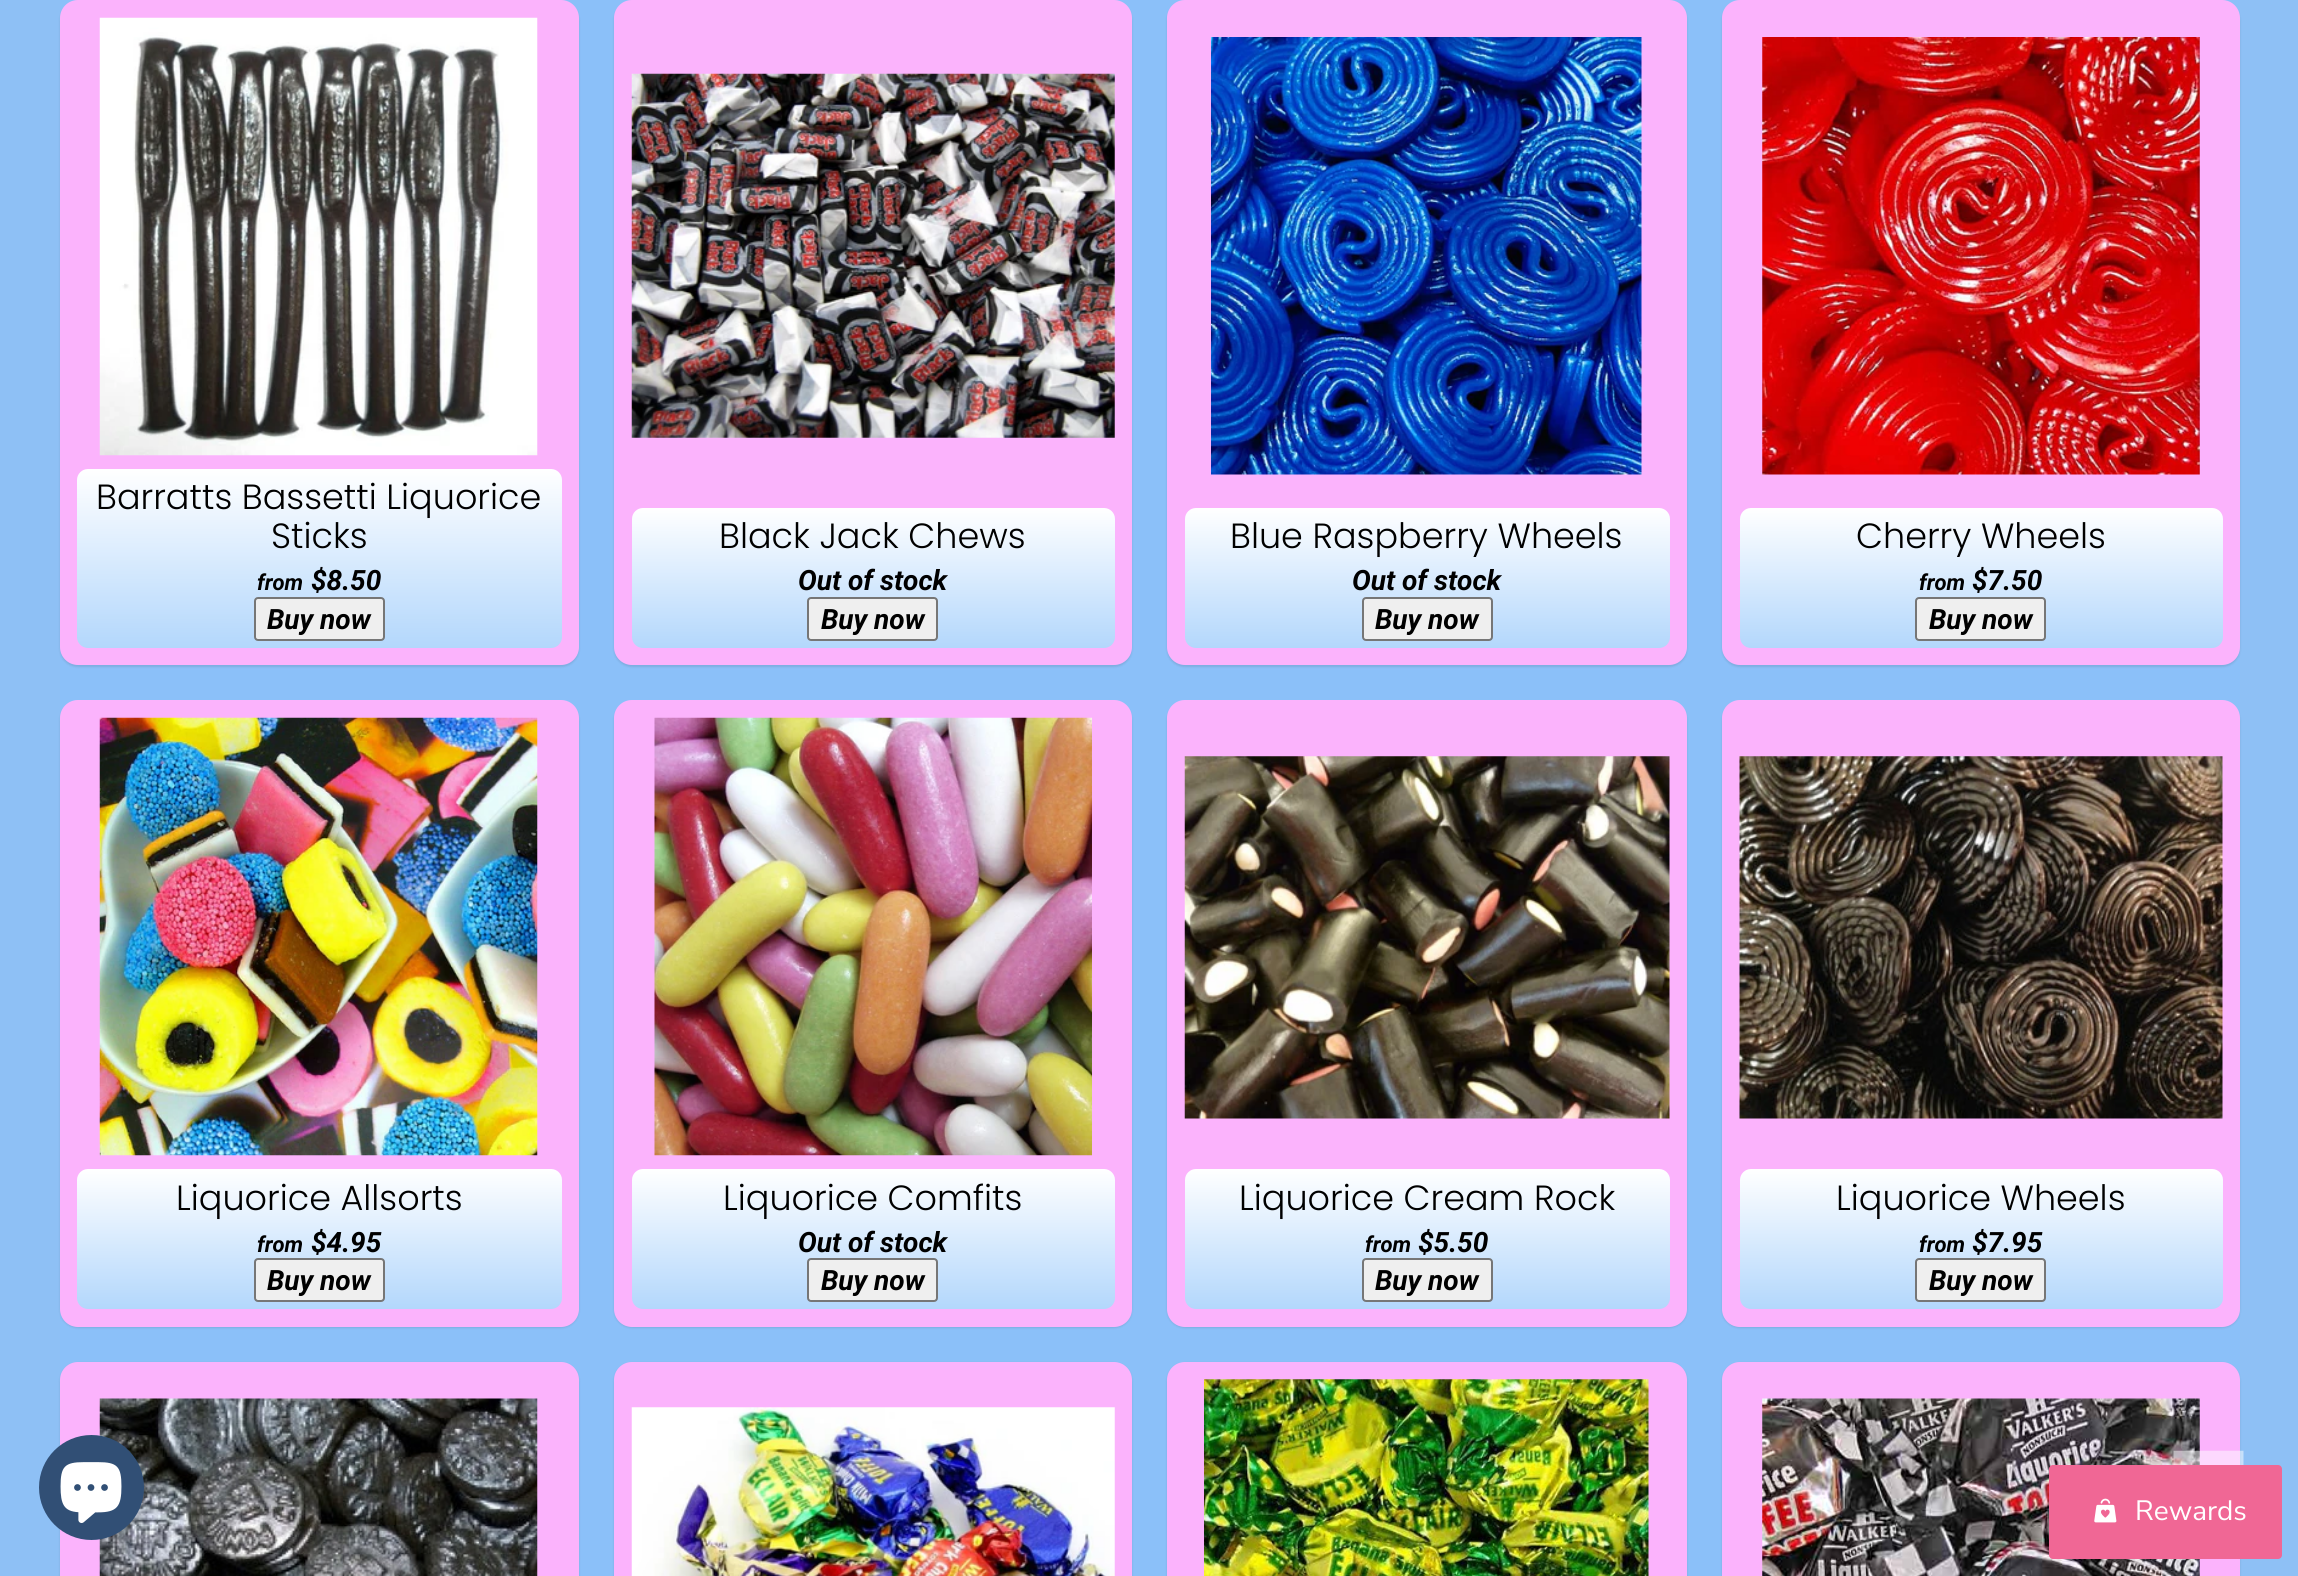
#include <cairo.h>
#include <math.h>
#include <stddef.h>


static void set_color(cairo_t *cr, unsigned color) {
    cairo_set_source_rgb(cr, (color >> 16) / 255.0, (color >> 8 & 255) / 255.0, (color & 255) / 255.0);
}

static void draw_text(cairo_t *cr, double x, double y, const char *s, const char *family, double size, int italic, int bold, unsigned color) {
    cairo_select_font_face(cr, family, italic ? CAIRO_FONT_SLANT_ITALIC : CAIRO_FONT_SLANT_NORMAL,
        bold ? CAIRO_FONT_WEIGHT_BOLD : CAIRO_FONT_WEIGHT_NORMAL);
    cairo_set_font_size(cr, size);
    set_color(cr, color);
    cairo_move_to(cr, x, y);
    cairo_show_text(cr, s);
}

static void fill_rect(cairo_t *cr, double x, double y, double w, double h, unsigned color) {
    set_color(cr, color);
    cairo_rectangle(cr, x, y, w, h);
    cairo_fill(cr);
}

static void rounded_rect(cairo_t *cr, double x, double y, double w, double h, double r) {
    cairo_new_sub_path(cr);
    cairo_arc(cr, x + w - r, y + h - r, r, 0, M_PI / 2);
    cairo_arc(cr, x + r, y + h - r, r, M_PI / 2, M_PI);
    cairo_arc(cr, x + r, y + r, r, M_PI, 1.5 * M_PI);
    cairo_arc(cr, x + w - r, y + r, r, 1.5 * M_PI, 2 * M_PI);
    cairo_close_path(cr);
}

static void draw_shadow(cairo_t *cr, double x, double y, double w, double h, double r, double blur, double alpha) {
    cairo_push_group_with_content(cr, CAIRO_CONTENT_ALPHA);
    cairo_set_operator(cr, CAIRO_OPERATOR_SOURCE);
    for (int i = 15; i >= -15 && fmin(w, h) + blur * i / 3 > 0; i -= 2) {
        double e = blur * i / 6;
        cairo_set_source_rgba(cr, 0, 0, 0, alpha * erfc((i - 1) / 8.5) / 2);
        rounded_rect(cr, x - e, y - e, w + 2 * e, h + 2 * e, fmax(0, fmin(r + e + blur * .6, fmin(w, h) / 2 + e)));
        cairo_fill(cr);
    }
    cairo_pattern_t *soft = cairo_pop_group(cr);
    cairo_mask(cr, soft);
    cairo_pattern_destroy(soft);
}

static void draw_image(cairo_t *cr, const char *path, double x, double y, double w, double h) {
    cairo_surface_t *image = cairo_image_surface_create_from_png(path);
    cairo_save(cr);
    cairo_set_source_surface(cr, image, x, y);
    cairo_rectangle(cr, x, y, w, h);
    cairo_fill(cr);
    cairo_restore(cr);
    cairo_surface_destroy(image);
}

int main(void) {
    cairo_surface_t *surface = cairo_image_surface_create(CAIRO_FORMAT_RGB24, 2298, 1576);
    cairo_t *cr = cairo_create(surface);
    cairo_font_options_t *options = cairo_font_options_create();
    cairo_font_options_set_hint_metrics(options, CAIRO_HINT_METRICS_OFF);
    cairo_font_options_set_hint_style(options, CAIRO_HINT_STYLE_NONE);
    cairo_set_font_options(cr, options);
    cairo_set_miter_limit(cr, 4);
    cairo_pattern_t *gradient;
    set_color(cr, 0x8EC0F5);
    cairo_paint(cr);
    fill_rect(cr, 60, 0, 2180, 1576, 0x8BC0F9);
    set_color(cr, 0x000000);
    draw_shadow(cr, 60, 2, 519, 665, 18, 1, 0.1);
    set_color(cr, 0xFBB3FC);
    rounded_rect(cr, 60, 0, 519, 665, 18);
    cairo_fill(cr);
    draw_image(cr, "assets/img1.png", 99, 17, 439, 439);
    gradient = cairo_pattern_create_linear(319, 469, 319, 648);
    cairo_pattern_add_color_stop_rgba(gradient, 0, 1, 1, 1, 1);
    cairo_pattern_add_color_stop_rgba(gradient, 1, 0.702, 0.843, 0.988, 1);
    cairo_set_source(cr, gradient);
    cairo_pattern_destroy(gradient);
    rounded_rect(cr, 77, 469, 485, 179, 11);
    cairo_fill(cr);
    draw_text(cr, 96, 509, "Barratts Bassetti Liquorice", "Poppins Light", 35, 0, 0, 0x000000);
    draw_text(cr, 271, 548, "Sticks", "Poppins Light", 35, 0, 0, 0x000000);
    draw_text(cr, 257, 590, "from", "Roboto", 22, 1, 1, 0x000000);
    draw_text(cr, 311, 590, "$8.50", "Roboto", 28, 1, 1, 0x000000);
    set_color(cr, 0xEFEFEF);
    rounded_rect(cr, 255, 598, 129, 42, 3);
    cairo_fill_preserve(cr);
    set_color(cr, 0x767676);
    cairo_stroke(cr);
    draw_text(cr, 267, 629, "Buy now", "Roboto", 28, 1, 1, 0x000000);
    set_color(cr, 0x000000);
    draw_shadow(cr, 614, 2, 518, 665, 18, 1, 0.1);
    set_color(cr, 0xFBB3FC);
    rounded_rect(cr, 614, 0, 518, 665, 18);
    cairo_fill(cr);
    draw_image(cr, "assets/img2.png", 631, 73, 484, 365);
    gradient = cairo_pattern_create_linear(873, 508, 873, 648);
    cairo_pattern_add_color_stop_rgba(gradient, 0, 1, 1, 1, 1);
    cairo_pattern_add_color_stop_rgba(gradient, 1, 0.702, 0.843, 0.988, 1);
    cairo_set_source(cr, gradient);
    cairo_pattern_destroy(gradient);
    rounded_rect(cr, 632, 508, 483, 140, 11);
    cairo_fill(cr);
    draw_text(cr, 719, 548, "Black Jack Chews", "Poppins Light", 35, 0, 0, 0x000000);
    draw_text(cr, 798, 590, "Out of stock", "Roboto", 28, 1, 1, 0x000000);
    set_color(cr, 0xEFEFEF);
    rounded_rect(cr, 808, 598, 129, 42, 3);
    cairo_fill_preserve(cr);
    set_color(cr, 0x767676);
    cairo_stroke(cr);
    draw_text(cr, 821, 629, "Buy now", "Roboto", 28, 1, 1, 0x000000);
    set_color(cr, 0x000000);
    draw_shadow(cr, 1167, 2, 520, 665, 18, 1, 0.1);
    set_color(cr, 0xFBB3FC);
    rounded_rect(cr, 1167, 0, 520, 665, 18);
    cairo_fill(cr);
    draw_image(cr, "assets/img3.png", 1211, 37, 431, 438);
    gradient = cairo_pattern_create_linear(1427, 508, 1427, 648);
    cairo_pattern_add_color_stop_rgba(gradient, 0, 1, 1, 1, 1);
    cairo_pattern_add_color_stop_rgba(gradient, 1, 0.702, 0.843, 0.988, 1);
    cairo_set_source(cr, gradient);
    cairo_pattern_destroy(gradient);
    rounded_rect(cr, 1185, 508, 485, 140, 11);
    cairo_fill(cr);
    draw_text(cr, 1230, 548, "Blue Raspberry Wheels", "Poppins Light", 35, 0, 0, 0x000000);
    draw_text(cr, 1352, 590, "Out of stock", "Roboto", 28, 1, 1, 0x000000);
    set_color(cr, 0xEFEFEF);
    rounded_rect(cr, 1363, 598, 129, 42, 3);
    cairo_fill_preserve(cr);
    set_color(cr, 0x767676);
    cairo_stroke(cr);
    draw_text(cr, 1375, 629, "Buy now", "Roboto", 28, 1, 1, 0x000000);
    set_color(cr, 0x000000);
    draw_shadow(cr, 1722, 2, 518, 665, 18, 1, 0.1);
    set_color(cr, 0xFBB3FC);
    rounded_rect(cr, 1722, 0, 518, 665, 18);
    cairo_fill(cr);
    draw_image(cr, "assets/img4.png", 1762, 37, 438, 438);
    gradient = cairo_pattern_create_linear(1981, 508, 1981, 648);
    cairo_pattern_add_color_stop_rgba(gradient, 0, 1, 1, 1, 1);
    cairo_pattern_add_color_stop_rgba(gradient, 1, 0.702, 0.843, 0.988, 1);
    cairo_set_source(cr, gradient);
    cairo_pattern_destroy(gradient);
    rounded_rect(cr, 1740, 508, 483, 140, 11);
    cairo_fill(cr);
    draw_text(cr, 1856, 548, "Cherry Wheels", "Poppins Light", 35, 0, 0, 0x000000);
    draw_text(cr, 1919, 590, "from", "Roboto", 22, 1, 1, 0x000000);
    draw_text(cr, 1972, 590, "$7.50", "Roboto", 28, 1, 1, 0x000000);
    set_color(cr, 0xEFEFEF);
    rounded_rect(cr, 1916, 598, 129, 42, 3);
    cairo_fill_preserve(cr);
    set_color(cr, 0x767676);
    cairo_stroke(cr);
    draw_text(cr, 1929, 629, "Buy now", "Roboto", 28, 1, 1, 0x000000);
    set_color(cr, 0x000000);
    draw_shadow(cr, 60, 702, 519, 626, 18, 1, 0.1);
    set_color(cr, 0xFBB3FC);
    rounded_rect(cr, 60, 700, 519, 627, 18);
    cairo_fill(cr);
    draw_image(cr, "assets/img5.png", 99, 717, 439, 439);
    gradient = cairo_pattern_create_linear(319, 1169, 319, 1309);
    cairo_pattern_add_color_stop_rgba(gradient, 0, 1, 1, 1, 1);
    cairo_pattern_add_color_stop_rgba(gradient, 1, 0.702, 0.843, 0.988, 1);
    cairo_set_source(cr, gradient);
    cairo_pattern_destroy(gradient);
    rounded_rect(cr, 77, 1169, 485, 140, 11);
    cairo_fill(cr);
    draw_text(cr, 176, 1210, "Liquorice Allsorts", "Poppins Light", 35, 0, 0, 0x000000);
    draw_text(cr, 257, 1252, "from", "Roboto", 22, 1, 1, 0x000000);
    draw_text(cr, 311, 1252, "$4.95", "Roboto", 28, 1, 1, 0x000000);
    set_color(cr, 0xEFEFEF);
    rounded_rect(cr, 255, 1259, 129, 42, 3);
    cairo_fill_preserve(cr);
    set_color(cr, 0x767676);
    cairo_stroke(cr);
    draw_text(cr, 267, 1290, "Buy now", "Roboto", 28, 1, 1, 0x000000);
    set_color(cr, 0x000000);
    draw_shadow(cr, 614, 702, 518, 626, 18, 1, 0.1);
    set_color(cr, 0xFBB3FC);
    rounded_rect(cr, 614, 700, 518, 627, 18);
    cairo_fill(cr);
    draw_image(cr, "assets/img6.png", 654, 717, 438, 439);
    gradient = cairo_pattern_create_linear(873, 1169, 873, 1309);
    cairo_pattern_add_color_stop_rgba(gradient, 0, 1, 1, 1, 1);
    cairo_pattern_add_color_stop_rgba(gradient, 1, 0.702, 0.843, 0.988, 1);
    cairo_set_source(cr, gradient);
    cairo_pattern_destroy(gradient);
    rounded_rect(cr, 632, 1169, 483, 140, 11);
    cairo_fill(cr);
    draw_text(cr, 723, 1210, "Liquorice Comfits", "Poppins Light", 35, 0, 0, 0x000000);
    draw_text(cr, 798, 1252, "Out of stock", "Roboto", 28, 1, 1, 0x000000);
    set_color(cr, 0xEFEFEF);
    rounded_rect(cr, 808, 1259, 129, 42, 3);
    cairo_fill_preserve(cr);
    set_color(cr, 0x767676);
    cairo_stroke(cr);
    draw_text(cr, 821, 1290, "Buy now", "Roboto", 28, 1, 1, 0x000000);
    set_color(cr, 0x000000);
    draw_shadow(cr, 1167, 702, 520, 626, 18, 1, 0.1);
    set_color(cr, 0xFBB3FC);
    rounded_rect(cr, 1167, 700, 520, 627, 18);
    cairo_fill(cr);
    draw_image(cr, "assets/img7.png", 1184, 756, 486, 363);
    gradient = cairo_pattern_create_linear(1427, 1169, 1427, 1309);
    cairo_pattern_add_color_stop_rgba(gradient, 0, 1, 1, 1, 1);
    cairo_pattern_add_color_stop_rgba(gradient, 1, 0.702, 0.843, 0.988, 1);
    cairo_set_source(cr, gradient);
    cairo_pattern_destroy(gradient);
    rounded_rect(cr, 1185, 1169, 485, 140, 11);
    cairo_fill(cr);
    draw_text(cr, 1239, 1210, "Liquorice Cream Rock", "Poppins Light", 35, 0, 0, 0x000000);
    draw_text(cr, 1365, 1252, "from", "Roboto", 22, 1, 1, 0x000000);
    draw_text(cr, 1418, 1252, "$5.50", "Roboto", 28, 1, 1, 0x000000);
    set_color(cr, 0xEFEFEF);
    rounded_rect(cr, 1363, 1259, 129, 42, 3);
    cairo_fill_preserve(cr);
    set_color(cr, 0x767676);
    cairo_stroke(cr);
    draw_text(cr, 1375, 1290, "Buy now", "Roboto", 28, 1, 1, 0x000000);
    set_color(cr, 0x000000);
    draw_shadow(cr, 1722, 702, 518, 626, 18, 1, 0.1);
    set_color(cr, 0xFBB3FC);
    rounded_rect(cr, 1722, 700, 518, 627, 18);
    cairo_fill(cr);
    draw_image(cr, "assets/img8.png", 1739, 756, 484, 363);
    gradient = cairo_pattern_create_linear(1981, 1169, 1981, 1309);
    cairo_pattern_add_color_stop_rgba(gradient, 0, 1, 1, 1, 1);
    cairo_pattern_add_color_stop_rgba(gradient, 1, 0.702, 0.843, 0.988, 1);
    cairo_set_source(cr, gradient);
    cairo_pattern_destroy(gradient);
    rounded_rect(cr, 1740, 1169, 483, 140, 11);
    cairo_fill(cr);
    draw_text(cr, 1836, 1210, "Liquorice Wheels", "Poppins Light", 35, 0, 0, 0x000000);
    draw_text(cr, 1919, 1252, "from", "Roboto", 22, 1, 1, 0x000000);
    draw_text(cr, 1972, 1252, "$7.95", "Roboto", 28, 1, 1, 0x000000);
    set_color(cr, 0xEFEFEF);
    rounded_rect(cr, 1916, 1259, 129, 42, 3);
    cairo_fill_preserve(cr);
    set_color(cr, 0x767676);
    cairo_stroke(cr);
    draw_text(cr, 1929, 1290, "Buy now", "Roboto", 28, 1, 1, 0x000000);
    set_color(cr, 0x000000);
    draw_shadow(cr, 60, 1363, 519, 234, 18, 1, 0.1);
    set_color(cr, 0xFBB3FC);
    rounded_rect(cr, 60, 1362, 519, 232, 18);
    cairo_fill(cr);
    draw_image(cr, "assets/img9.png", 99, 1398, 439, 178);
    set_color(cr, 0x000000);
    draw_shadow(cr, 614, 1363, 518, 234, 18, 1, 0.1);
    set_color(cr, 0xFBB3FC);
    rounded_rect(cr, 614, 1362, 518, 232, 18);
    cairo_fill(cr);
    draw_image(cr, "assets/img10.png", 631, 1407, 484, 169);
    set_color(cr, 0x000000);
    draw_shadow(cr, 1167, 1363, 520, 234, 18, 1, 0.1);
    set_color(cr, 0xFBB3FC);
    rounded_rect(cr, 1167, 1362, 520, 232, 18);
    cairo_fill(cr);
    draw_image(cr, "assets/img11.png", 1204, 1379, 445, 197);
    set_color(cr, 0x000000);
    draw_shadow(cr, 1722, 1363, 518, 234, 18, 1, 0.1);
    set_color(cr, 0xFBB3FC);
    rounded_rect(cr, 1722, 1362, 518, 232, 18);
    cairo_fill(cr);
    draw_image(cr, "assets/img12.png", 1762, 1398, 438, 178);
    set_color(cr, 0x314F75);
    cairo_arc(cr, 91.5, 1487.5, 52.5, 0, 2 * M_PI);
    cairo_fill(cr);
    draw_image(cr, "assets/img13.png", 60, 1462, 62, 61);
    draw_image(cr, "assets/img14.png", 2173, 1450, 71, 15);
    set_color(cr, 0xF06795);
    rounded_rect(cr, 2049, 1465, 233, 94, 4);
    cairo_fill(cr);
    draw_image(cr, "assets/img15.png", 2094, 1498, 23, 25);
    draw_text(cr, 2135, 1520, "Rewards", "Nunito Sans ExtraLight", 28, 0, 0, 0xFFFFFF);
    cairo_surface_write_to_png(surface, "output.png");
    cairo_font_options_destroy(options);
    cairo_destroy(cr);
    cairo_surface_destroy(surface);
    return 0;
}
